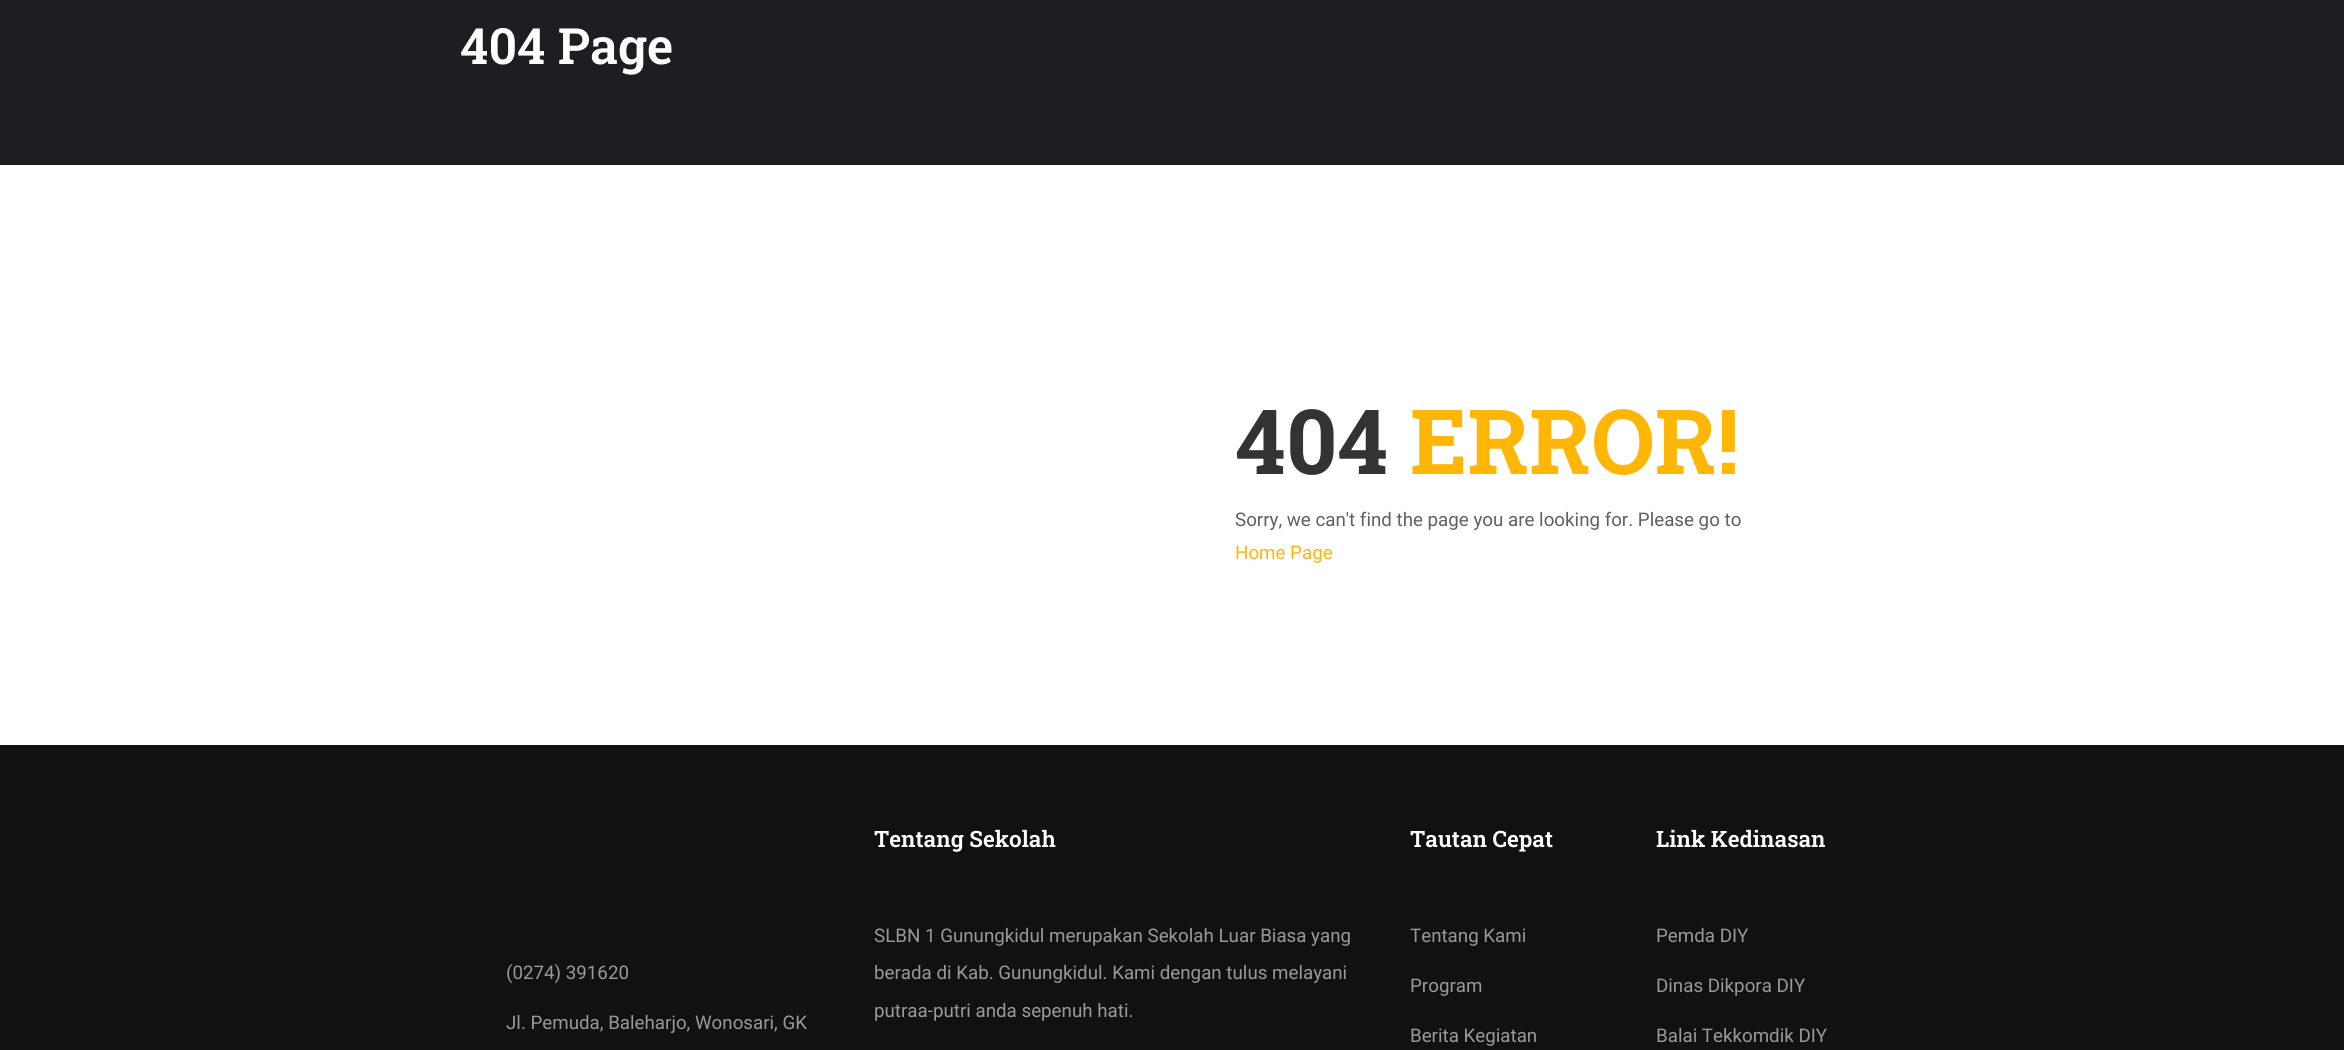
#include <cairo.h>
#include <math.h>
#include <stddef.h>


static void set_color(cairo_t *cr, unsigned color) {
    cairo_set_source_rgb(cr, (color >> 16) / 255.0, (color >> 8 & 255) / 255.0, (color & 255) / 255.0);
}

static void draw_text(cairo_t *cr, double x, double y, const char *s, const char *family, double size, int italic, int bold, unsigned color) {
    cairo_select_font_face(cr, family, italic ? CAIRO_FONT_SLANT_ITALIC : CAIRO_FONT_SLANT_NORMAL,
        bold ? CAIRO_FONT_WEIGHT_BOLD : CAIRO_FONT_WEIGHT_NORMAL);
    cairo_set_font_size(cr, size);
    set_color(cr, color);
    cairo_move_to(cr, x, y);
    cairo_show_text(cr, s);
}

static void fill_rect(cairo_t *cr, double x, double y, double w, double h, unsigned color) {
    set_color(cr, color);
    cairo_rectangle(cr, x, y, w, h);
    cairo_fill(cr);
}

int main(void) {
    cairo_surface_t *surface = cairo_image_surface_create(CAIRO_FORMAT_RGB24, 2344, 1050);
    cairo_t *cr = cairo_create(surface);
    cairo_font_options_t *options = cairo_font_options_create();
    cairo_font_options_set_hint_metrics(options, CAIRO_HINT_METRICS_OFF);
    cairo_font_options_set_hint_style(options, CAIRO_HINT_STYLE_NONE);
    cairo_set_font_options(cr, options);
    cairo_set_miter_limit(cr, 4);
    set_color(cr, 0xFFFFFF);
    cairo_paint(cr);
    fill_rect(cr, 0, 0, 2344, 165, 0x1C1E22);
    draw_text(cr, 460, 64, "404 Page", "Roboto Slab SemiBold", 50, 0, 0, 0xFFFFFF);
    draw_text(cr, 1235, 474, "404", "Roboto Slab", 90, 0, 1, 0x333333);
    draw_text(cr, 1410, 474, "ERROR!", "Roboto Slab", 90, 0, 1, 0xFFB606);
    draw_text(cr, 1235, 526, "Sorry, we can't find the page you are looking for. Please go to", "Roboto", 18.75, 0, 0, 0x606060);
    draw_text(cr, 1235, 559, "Home Page", "Roboto", 18.75, 0, 0, 0xFFB606);
    fill_rect(cr, 0, 745, 2344, 305, 0x111111);
    draw_text(cr, 506, 979, "(0274) 391620", "Roboto", 18.75, 0, 0, 0x999999);
    draw_text(cr, 506, 1029, "Jl. Pemuda, Baleharjo, Wonosari, GK", "Roboto", 18.75, 0, 0, 0x999999);
    draw_text(cr, 874, 847, "Tentang Sekolah", "Roboto Slab SemiBold", 22.5, 0, 0, 0xFFFFFF);
    draw_text(cr, 874, 942, "SLBN 1 Gunungkidul merupakan Sekolah Luar Biasa yang", "Roboto", 18.75, 0, 0, 0x999999);
    draw_text(cr, 874, 979, "berada di Kab. Gunungkidul. Kami dengan tulus melayani", "Roboto", 18.75, 0, 0, 0x999999);
    draw_text(cr, 874, 1017, "putraa-putri anda sepenuh hati.", "Roboto", 18.75, 0, 0, 0x999999);
    draw_text(cr, 1410, 847, "Tautan Cepat", "Roboto Slab SemiBold", 22.5, 0, 0, 0xFFFFFF);
    draw_text(cr, 1410, 942, "Tentang Kami", "Roboto", 18.75, 0, 0, 0x999999);
    draw_text(cr, 1410, 992, "Program", "Roboto", 18.75, 0, 0, 0x999999);
    draw_text(cr, 1410, 1042, "Berita Kegiatan", "Roboto", 18.75, 0, 0, 0x999999);
    draw_text(cr, 1656, 847, "Link Kedinasan", "Roboto Slab SemiBold", 22.5, 0, 0, 0xFFFFFF);
    draw_text(cr, 1656, 942, "Pemda DIY", "Roboto", 18.75, 0, 0, 0x999999);
    draw_text(cr, 1656, 992, "Dinas Dikpora DIY", "Roboto", 18.75, 0, 0, 0x999999);
    draw_text(cr, 1656, 1042, "Balai Tekkomdik DIY", "Roboto", 18.75, 0, 0, 0x999999);
    cairo_surface_write_to_png(surface, "output.png");
    cairo_font_options_destroy(options);
    cairo_destroy(cr);
    cairo_surface_destroy(surface);
    return 0;
}
